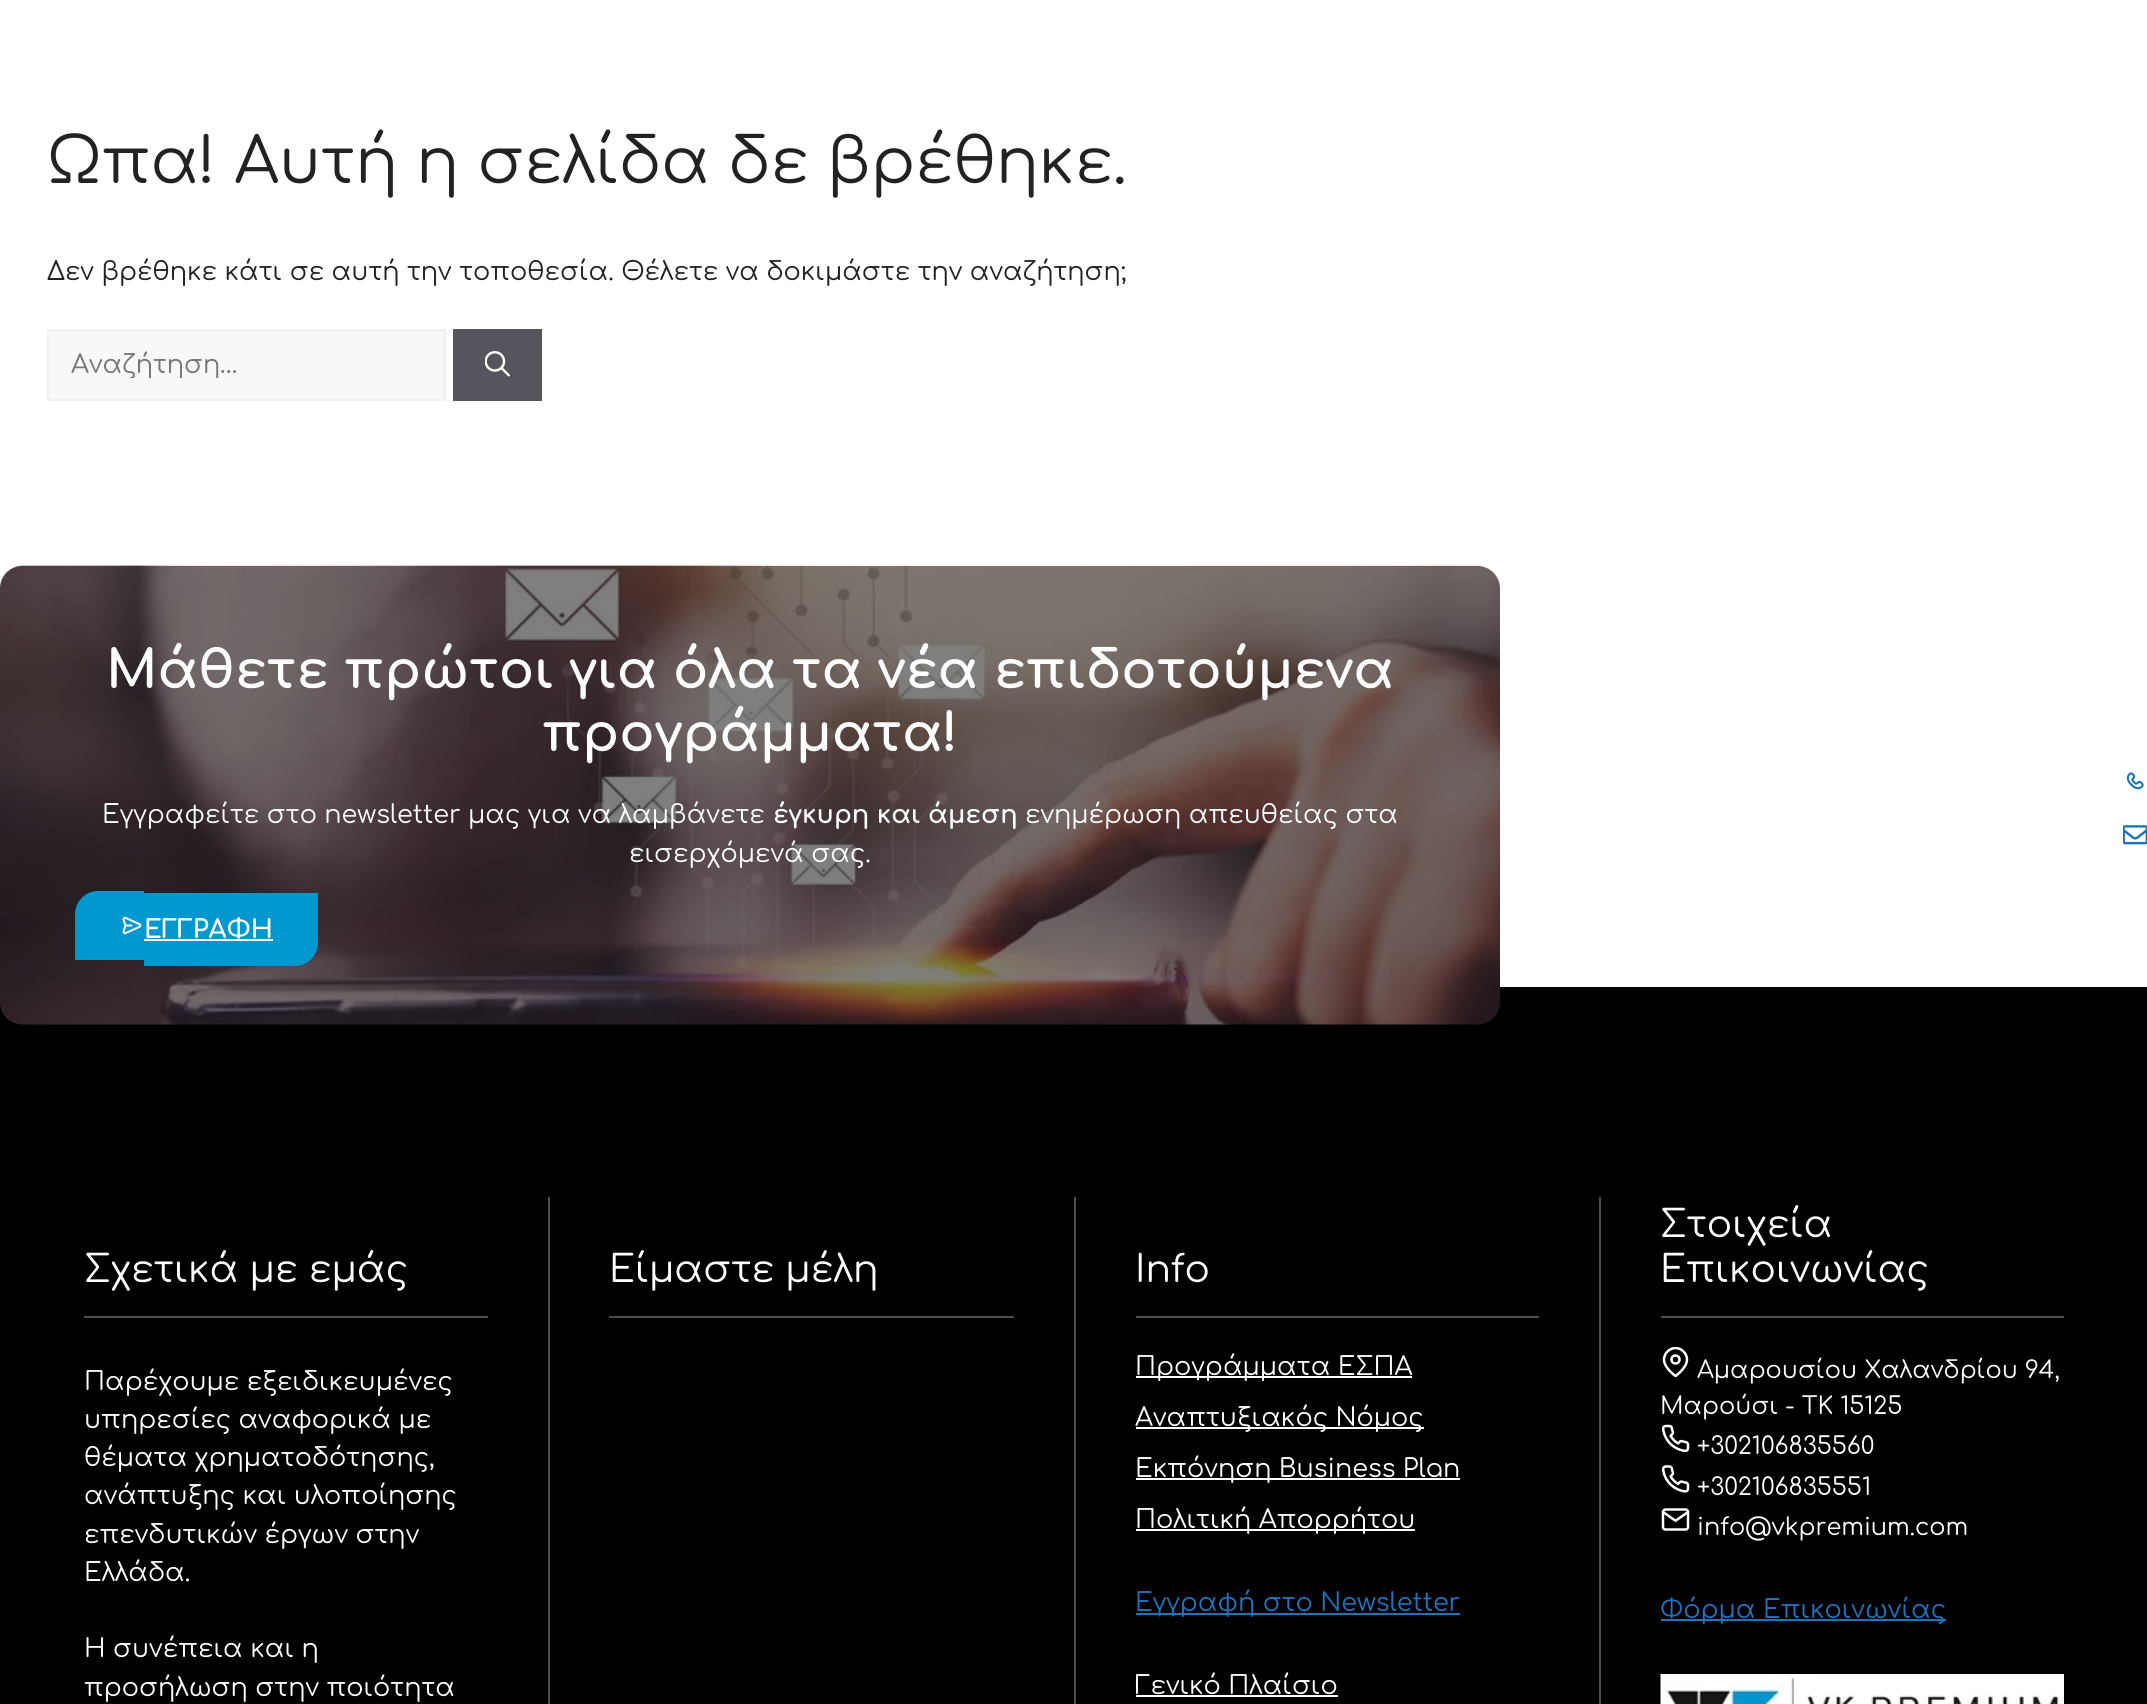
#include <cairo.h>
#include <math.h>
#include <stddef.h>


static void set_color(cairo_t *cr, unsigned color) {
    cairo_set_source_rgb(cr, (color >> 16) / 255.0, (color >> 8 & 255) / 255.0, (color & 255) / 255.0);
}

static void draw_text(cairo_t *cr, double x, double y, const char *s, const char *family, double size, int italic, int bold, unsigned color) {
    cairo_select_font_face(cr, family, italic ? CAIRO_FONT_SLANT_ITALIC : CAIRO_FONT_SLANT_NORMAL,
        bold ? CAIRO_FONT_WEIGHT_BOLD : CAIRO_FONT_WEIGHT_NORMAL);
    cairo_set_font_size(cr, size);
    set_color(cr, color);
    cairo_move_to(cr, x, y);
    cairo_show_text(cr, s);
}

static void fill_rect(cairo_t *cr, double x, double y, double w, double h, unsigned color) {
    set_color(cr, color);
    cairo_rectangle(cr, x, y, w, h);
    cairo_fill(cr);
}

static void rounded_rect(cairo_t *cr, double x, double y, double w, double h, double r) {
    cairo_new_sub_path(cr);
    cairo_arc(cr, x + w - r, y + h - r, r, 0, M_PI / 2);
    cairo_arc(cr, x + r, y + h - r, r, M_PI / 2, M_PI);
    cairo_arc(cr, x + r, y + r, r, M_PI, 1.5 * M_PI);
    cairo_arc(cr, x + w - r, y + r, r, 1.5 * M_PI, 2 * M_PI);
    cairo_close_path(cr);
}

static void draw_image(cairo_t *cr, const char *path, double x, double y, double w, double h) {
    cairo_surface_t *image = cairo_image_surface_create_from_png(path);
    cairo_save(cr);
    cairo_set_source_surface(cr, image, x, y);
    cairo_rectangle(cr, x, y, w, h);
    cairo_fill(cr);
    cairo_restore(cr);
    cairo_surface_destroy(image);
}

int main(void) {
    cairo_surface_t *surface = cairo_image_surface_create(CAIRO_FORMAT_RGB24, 2147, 1704);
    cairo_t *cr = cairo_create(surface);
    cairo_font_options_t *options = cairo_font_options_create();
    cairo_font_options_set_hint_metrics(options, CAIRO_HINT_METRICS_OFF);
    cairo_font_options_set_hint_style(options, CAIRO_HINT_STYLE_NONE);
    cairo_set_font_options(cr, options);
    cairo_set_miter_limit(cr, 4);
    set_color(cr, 0xFFFFFF);
    cairo_paint(cr);
    draw_text(cr, 47, 183, "Ωπα! Αυτή η σελίδα δε βρέθηκε.", "Comfortaa", 63, 0, 0, 0x222222);
    draw_text(cr, 47, 280, "Δεν βρέθηκε κάτι σε αυτή την τοποθεσία. Θέλετε να δοκιμάστε την αναζήτηση;", "Comfortaa", 25.5, 0, 0, 0x222222);
    set_color(cr, 0xF7F8F9);
    cairo_rectangle(cr, 48, 330, 397, 70);
    cairo_fill_preserve(cr);
    set_color(cr, 0xF0F0F0);
    cairo_stroke(cr);
    cairo_save(cr);
    cairo_rectangle(cr, 71, 350, 327, 28);
    cairo_clip(cr);
    draw_text(cr, 71, 373, "Αναζήτηση…", "Comfortaa", 25.5, 0, 0, 0x757575);
    cairo_restore(cr);
    fill_rect(cr, 453, 329, 89, 72, 0x55555E);
    draw_image(cr, "assets/img1.png", 485, 351, 25, 26);
    fill_rect(cr, 0, 987, 2147, 717, 0x000000);
    draw_image(cr, "assets/img2.png", 0, 565, 1500, 460);
    cairo_set_source_rgba(cr, 0, 0, 0, 0.5);
    rounded_rect(cr, 0, 566, 1500, 459, 23);
    cairo_fill(cr);
    draw_text(cr, 106, 688, "Μάθετε πρώτοι για όλα τα νέα επιδοτούμενα", "Comfortaa", 52.5, 0, 1, 0xFFFFFF);
    draw_text(cr, 542, 751, "προγράμματα!", "Comfortaa", 52.5, 0, 1, 0xFFFFFF);
    draw_text(cr, 102, 823, "Εγγραφείτε στο newsletter μας για να λαμβάνετε", "Comfortaa", 25.5, 0, 0, 0xFFFFFF);
    draw_text(cr, 773, 823, "έγκυρη και άμεση", "Comfortaa", 25.5, 0, 1, 0xFFFFFF);
    draw_text(cr, 1025, 823, "ενημέρωση απευθείας στα", "Comfortaa", 25.5, 0, 0, 0xFFFFFF);
    draw_text(cr, 629, 862, "εισερχόμενά σας.", "Comfortaa", 25.5, 0, 0, 0xFFFFFF);
    set_color(cr, 0x0198CF);
    cairo_new_path(cr);
    cairo_move_to(cr, 98, 891);
    cairo_line_to(cr, 144, 891);
    cairo_line_to(cr, 144, 960);
    cairo_line_to(cr, 75, 960);
    cairo_line_to(cr, 75, 914);
    cairo_curve_to(cr, 75, 901.5, 85.5, 891, 98, 891);
    cairo_close_path(cr);
    cairo_fill(cr);
    draw_image(cr, "assets/img3.png", 122, 916, 20, 19);
    cairo_new_path(cr);
    cairo_move_to(cr, 144, 893);
    cairo_line_to(cr, 318, 893);
    cairo_line_to(cr, 318, 943);
    cairo_curve_to(cr, 318, 955.5, 307.5, 966, 295, 966);
    cairo_line_to(cr, 144, 966);
    cairo_close_path(cr);
    cairo_fill(cr);
    draw_text(cr, 144, 938, "ΕΓΓΡΑΦΗ", "Comfortaa", 25.5, 0, 1, 0xFFFFFF);
    fill_rect(cr, 144, 939, 129, 2, 0xFFFFFF);
    draw_image(cr, "assets/img4.png", 2126, 772, 18, 18);
    draw_image(cr, "assets/img5.png", 2123, 825, 24, 20);
    fill_rect(cr, 548, 1197, 2, 507, 0x4D4D4D);
    fill_rect(cr, 84, 1316, 404, 2, 0x4D4D4D);
    draw_text(cr, 84, 1282, "Σχετικά με εμάς", "Comfortaa", 37.5, 0, 0, 0xFFFFFF);
    draw_text(cr, 84, 1390, "Παρέχουμε εξειδικευμένες", "Comfortaa", 25.5, 0, 0, 0xFFFFFF);
    draw_text(cr, 84, 1428, "υπηρεσίες αναφορικά με", "Comfortaa", 25.5, 0, 0, 0xFFFFFF);
    draw_text(cr, 84, 1466, "θέματα χρηματοδότησης,", "Comfortaa", 25.5, 0, 0, 0xFFFFFF);
    draw_text(cr, 84, 1504, "ανάπτυξης και υλοποίησης", "Comfortaa", 25.5, 0, 0, 0xFFFFFF);
    draw_text(cr, 84, 1543, "επενδυτικών έργων στην", "Comfortaa", 25.5, 0, 0, 0xFFFFFF);
    draw_text(cr, 84, 1581, "Ελλάδα.", "Comfortaa", 25.5, 0, 0, 0xFFFFFF);
    draw_text(cr, 84, 1657, "Η συνέπεια και η", "Comfortaa", 25.5, 0, 0, 0xFFFFFF);
    draw_text(cr, 84, 1696, "προσήλωση στην ποιότητα", "Comfortaa", 25.5, 0, 0, 0xFFFFFF);
    fill_rect(cr, 1074, 1197, 2, 507, 0x4D4D4D);
    fill_rect(cr, 609, 1316, 405, 2, 0x4D4D4D);
    draw_text(cr, 609, 1282, "Είμαστε μέλη", "Comfortaa", 37.5, 0, 0, 0xFFFFFF);
    fill_rect(cr, 1599, 1197, 2, 507, 0x4D4D4D);
    fill_rect(cr, 1136, 1316, 403, 2, 0x4D4D4D);
    draw_text(cr, 1135, 1282, "Info", "Comfortaa", 37.5, 0, 0, 0xFFFFFF);
    fill_rect(cr, 1136, 1376, 276, 2, 0xFFFFFF);
    draw_text(cr, 1135, 1375, "Προγράμματα ΕΣΠΑ", "Comfortaa", 25.5, 0, 0, 0xFFFFFF);
    fill_rect(cr, 1136, 1427, 288, 2, 0xFFFFFF);
    draw_text(cr, 1135, 1426, "Αναπτυξιακός Νόμος", "Comfortaa", 25.5, 0, 0, 0xFFFFFF);
    fill_rect(cr, 1136, 1478, 324, 2, 0xFFFFFF);
    draw_text(cr, 1135, 1477, "Εκπόνηση Business Plan", "Comfortaa", 25.5, 0, 0, 0xFFFFFF);
    fill_rect(cr, 1136, 1529, 279, 2, 0xFFFFFF);
    draw_text(cr, 1135, 1528, "Πολιτική Απορρήτου", "Comfortaa", 25.5, 0, 0, 0xFFFFFF);
    fill_rect(cr, 1136, 1613, 324, 2, 0x1E73BE);
    draw_text(cr, 1135, 1611, "Εγγραφή στο Newsletter", "Comfortaa", 25.5, 0, 0, 0x1E73BE);
    draw_text(cr, 1135, 1694, "Γενικό Πλαίσιο", "Comfortaa", 25.5, 0, 0, 0xFFFFFF);
    fill_rect(cr, 1136, 1695, 202, 2, 0xFFFFFF);
    fill_rect(cr, 1661, 1316, 403, 2, 0x4D4D4D);
    draw_text(cr, 1660, 1237, "Στοιχεία", "Comfortaa", 37.5, 0, 0, 0xFFFFFF);
    draw_text(cr, 1660, 1282, "Επικοινωνίας", "Comfortaa", 37.5, 0, 0, 0xFFFFFF);
    draw_text(cr, 1697, 1378, "Αμαρουσίου Χαλανδρίου 94,", "Comfortaa", 24, 0, 0, 0xFFFFFF);
    cairo_save(cr);
    cairo_rectangle(cr, 1661, 1347, 30, 30);
    cairo_clip(cr);
    cairo_new_path(cr);
    cairo_move_to(cr, 1687, 1359.5);
    cairo_curve_to(cr, 1687, 1368, 1675.5, 1376, 1675.5, 1376);
    cairo_curve_to(cr, 1675.5, 1376, 1664, 1368, 1664, 1359.5);
    cairo_curve_to(cr, 1664, 1353.5, 1669.5, 1348, 1675.5, 1348);
    cairo_curve_to(cr, 1681.5, 1348, 1687, 1353.5, 1687, 1359.5);
    cairo_close_path(cr);
    cairo_set_line_width(cr, 2.5);
    cairo_set_line_cap(cr, CAIRO_LINE_CAP_ROUND);
    cairo_set_line_join(cr, CAIRO_LINE_JOIN_ROUND);
    cairo_stroke(cr);
    cairo_restore(cr);
    cairo_arc(cr, 1675.5, 1359.5, 4, 0, 2 * M_PI);
    cairo_set_line_width(cr, 2.5);
    cairo_stroke(cr);
    draw_text(cr, 1660, 1414, "Μαρούσι - ΤΚ 15125", "Comfortaa", 24, 0, 0, 0xFFFFFF);
    draw_image(cr, "assets/img6.png", 1661, 1424, 29, 29);
    draw_text(cr, 1697, 1454, "+302106835560", "Comfortaa", 24, 0, 0, 0xFFFFFF);
    draw_image(cr, "assets/img7.png", 1661, 1465, 29, 28);
    draw_text(cr, 1697, 1495, "+302106835551", "Comfortaa", 24, 0, 0, 0xFFFFFF);
    draw_image(cr, "assets/img8.png", 1661, 1508, 29, 23);
    draw_text(cr, 1697, 1535, "info@vkpremium.com", "Comfortaa", 24, 0, 0, 0xFFFFFF);
    fill_rect(cr, 1661, 1619, 285, 2, 0x1E73BE);
    draw_text(cr, 1660, 1618, "Φόρμα Eπικοινωνίας", "Comfortaa", 25.5, 0, 0, 0x1E73BE);
    draw_image(cr, "assets/img9.png", 1660, 1674, 404, 30);
    cairo_surface_write_to_png(surface, "output.png");
    cairo_font_options_destroy(options);
    cairo_destroy(cr);
    cairo_surface_destroy(surface);
    return 0;
}
